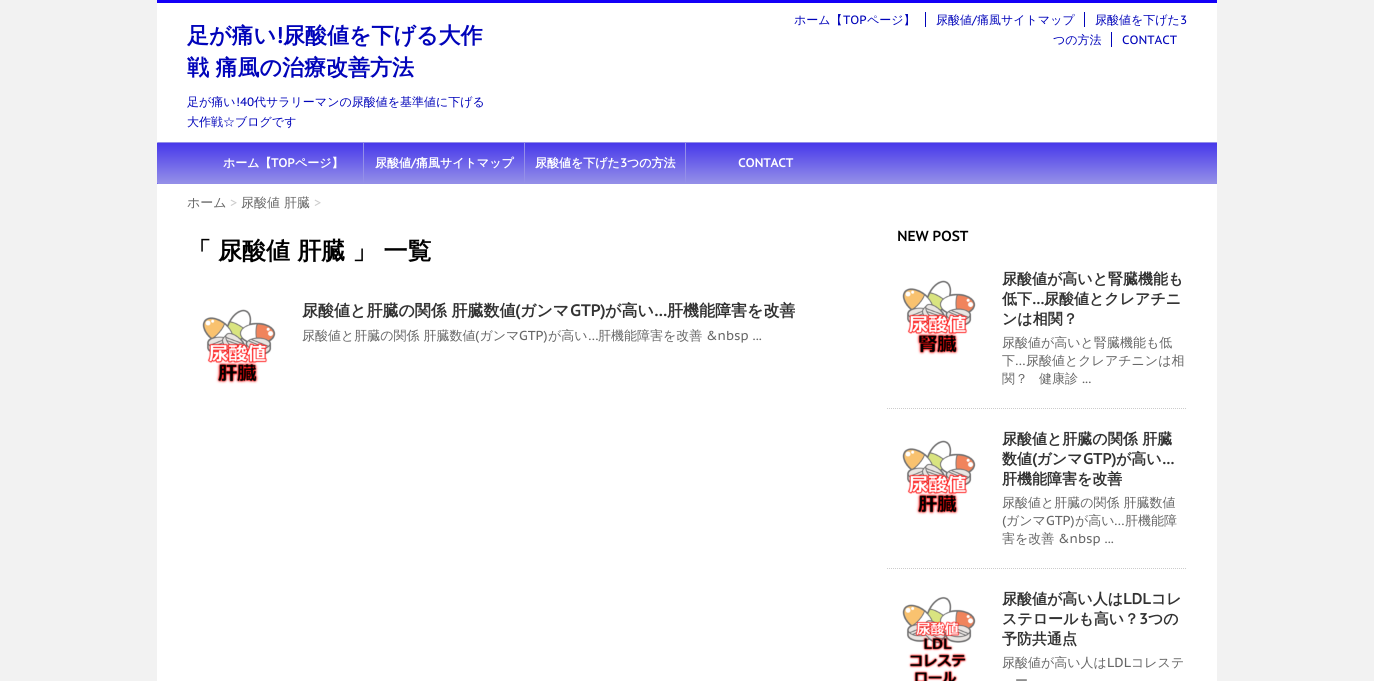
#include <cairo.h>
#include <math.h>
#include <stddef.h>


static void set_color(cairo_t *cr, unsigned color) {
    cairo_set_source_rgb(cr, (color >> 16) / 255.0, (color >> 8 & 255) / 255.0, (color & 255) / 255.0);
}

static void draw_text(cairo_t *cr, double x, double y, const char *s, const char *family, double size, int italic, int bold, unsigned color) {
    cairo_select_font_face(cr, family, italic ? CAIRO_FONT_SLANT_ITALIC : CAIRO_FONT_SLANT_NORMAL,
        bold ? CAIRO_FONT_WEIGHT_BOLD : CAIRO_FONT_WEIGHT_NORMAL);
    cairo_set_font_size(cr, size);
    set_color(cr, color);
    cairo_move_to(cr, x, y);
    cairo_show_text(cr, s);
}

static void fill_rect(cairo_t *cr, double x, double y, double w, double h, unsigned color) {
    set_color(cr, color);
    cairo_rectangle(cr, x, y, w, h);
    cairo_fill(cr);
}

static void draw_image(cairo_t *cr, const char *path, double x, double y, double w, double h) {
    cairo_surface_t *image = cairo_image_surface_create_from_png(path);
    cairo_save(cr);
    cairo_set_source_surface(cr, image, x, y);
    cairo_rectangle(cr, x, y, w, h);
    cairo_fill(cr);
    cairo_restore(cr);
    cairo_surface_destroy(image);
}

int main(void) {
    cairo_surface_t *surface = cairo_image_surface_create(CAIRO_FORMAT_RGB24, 1374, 681);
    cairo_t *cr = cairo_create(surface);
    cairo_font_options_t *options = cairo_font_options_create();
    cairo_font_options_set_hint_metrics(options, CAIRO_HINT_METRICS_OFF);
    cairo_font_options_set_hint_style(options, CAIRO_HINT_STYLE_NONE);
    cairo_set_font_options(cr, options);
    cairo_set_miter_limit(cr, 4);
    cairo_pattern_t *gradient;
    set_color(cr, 0xF2F2F2);
    cairo_paint(cr);
    fill_rect(cr, 157, 3, 1060, 678, 0xFFFFFF);
    fill_rect(cr, 157, 0, 1060, 3, 0x1400F7);
    draw_text(cr, 187, 43, "足が痛い", "WenQuanYi Zen Hei", 22, 0, 1, 0x0104BA);
    draw_text(cr, 276, 43, "!", "PT Sans Caption", 22, 0, 1, 0x0104BA);
    draw_text(cr, 283, 43, "尿酸値を下げる大作", "WenQuanYi Zen Hei", 22, 0, 1, 0x0104BA);
    draw_text(cr, 187, 75, "戦 痛風の治療改善方法", "WenQuanYi Zen Hei", 22, 0, 1, 0x0104BA);
    draw_text(cr, 187, 106, "足が痛い", "WenQuanYi Zen Hei Medium", 12, 0, 0, 0x0104BA);
    draw_text(cr, 236, 106, "!40", "PT Sans Caption", 12, 0, 0, 0x0104BA);
    draw_text(cr, 254, 106, "代サラリーマンの尿酸値を基準値に下げる", "WenQuanYi Zen Hei Medium", 12, 0, 0, 0x0104BA);
    draw_text(cr, 187, 126, "大作戦☆ブログです", "WenQuanYi Zen Hei Medium", 12, 0, 0, 0x0104BA);
    draw_text(cr, 794, 24, "ホーム【", "WenQuanYi Zen Hei Medium", 12, 0, 0, 0x0104BA);
    draw_text(cr, 843, 24, "TOP", "PT Sans Caption", 12, 0, 0, 0x0104BA);
    draw_text(cr, 867, 24, "ページ】", "WenQuanYi Zen Hei Medium", 12, 0, 0, 0x0104BA);
    fill_rect(cr, 925, 12, 1, 15, 0x0104BA);
    draw_text(cr, 936, 24, "尿酸値", "WenQuanYi Zen Hei Medium", 12, 0, 0, 0x0104BA);
    draw_text(cr, 972, 24, "/", "PT Sans Caption", 12, 0, 0, 0x0104BA);
    draw_text(cr, 977, 24, "痛風サイトマップ", "WenQuanYi Zen Hei Medium", 12, 0, 0, 0x0104BA);
    fill_rect(cr, 1084, 12, 1, 15, 0x0104BA);
    draw_text(cr, 1095, 24, "尿酸値を下げた", "WenQuanYi Zen Hei Medium", 12, 0, 0, 0x0104BA);
    draw_text(cr, 1180, 24, "3", "PT Sans Caption", 12, 0, 0, 0x0104BA);
    draw_text(cr, 1053, 44, "つの方法", "WenQuanYi Zen Hei Medium", 12, 0, 0, 0x0104BA);
    fill_rect(cr, 1111, 32, 1, 15, 0x0104BA);
    draw_text(cr, 1122, 44, "CONTACT", "PT Sans Caption", 12, 0, 0, 0x0104BA);
    gradient = cairo_pattern_create_linear(687, 103, 687, 143);
    cairo_pattern_add_color_stop_rgba(gradient, 0, 0.278, 0.22, 0.918, 1);
    cairo_pattern_add_color_stop_rgba(gradient, 1, 0.58, 0.561, 0.91, 1);
    cairo_set_source(cr, gradient);
    cairo_pattern_destroy(gradient);
    cairo_new_path(cr);
    cairo_move_to(cr, 158, 142);
    cairo_line_to(cr, 1216, 142);
    cairo_curve_to(cr, 1216.5, 142, 1217, 142.5, 1217, 143);
    cairo_line_to(cr, 157, 143);
    cairo_curve_to(cr, 157, 142.5, 157.5, 142, 158, 142);
    cairo_close_path(cr);
    cairo_fill(cr);
    gradient = cairo_pattern_create_linear(687, 143, 687, 183);
    cairo_pattern_add_color_stop_rgba(gradient, 0, 0.278, 0.22, 0.918, 1);
    cairo_pattern_add_color_stop_rgba(gradient, 1, 0.58, 0.561, 0.91, 1);
    cairo_set_source(cr, gradient);
    cairo_pattern_destroy(gradient);
    cairo_rectangle(cr, 157, 143, 1060, 40);
    cairo_fill(cr);
    gradient = cairo_pattern_create_linear(687, 183, 687, 223);
    cairo_pattern_add_color_stop_rgba(gradient, 0, 0.278, 0.22, 0.918, 1);
    cairo_pattern_add_color_stop_rgba(gradient, 1, 0.58, 0.561, 0.91, 1);
    cairo_set_source(cr, gradient);
    cairo_pattern_destroy(gradient);
    cairo_new_path(cr);
    cairo_move_to(cr, 157, 183);
    cairo_line_to(cr, 1217, 183);
    cairo_curve_to(cr, 1217, 183.5, 1216.5, 184, 1216, 184);
    cairo_line_to(cr, 158, 184);
    cairo_curve_to(cr, 157.5, 184, 157, 183.5, 157, 183);
    cairo_close_path(cr);
    cairo_fill(cr);
    fill_rect(cr, 1216, 142, 1, 1, 0x948FE8);
    fill_rect(cr, 158, 183, 1059, 1, 0x948FE8);
    fill_rect(cr, 363, 143, 1, 40, 0x948FE8);
    draw_text(cr, 223, 167, "ホーム【", "WenQuanYi Zen Hei", 12, 0, 1, 0xFFFFFF);
    draw_text(cr, 271, 167, "TOP", "PT Sans Caption", 12, 0, 1, 0xFFFFFF);
    draw_text(cr, 295, 167, "ページ】", "WenQuanYi Zen Hei", 12, 0, 1, 0xFFFFFF);
    fill_rect(cr, 524, 143, 1, 40, 0x948FE8);
    draw_text(cr, 375, 167, "尿酸値", "WenQuanYi Zen Hei", 12, 0, 1, 0xFFFFFF);
    draw_text(cr, 411, 167, "/", "PT Sans Caption", 12, 0, 1, 0xFFFFFF);
    draw_text(cr, 416, 167, "痛風サイトマップ", "WenQuanYi Zen Hei", 12, 0, 1, 0xFFFFFF);
    fill_rect(cr, 685, 143, 1, 40, 0x948FE8);
    draw_text(cr, 535, 167, "尿酸値を下げた", "WenQuanYi Zen Hei", 12, 0, 1, 0xFFFFFF);
    draw_text(cr, 620, 167, "3", "PT Sans Caption", 12, 0, 1, 0xFFFFFF);
    draw_text(cr, 627, 167, "つの方法", "WenQuanYi Zen Hei", 12, 0, 1, 0xFFFFFF);
    draw_text(cr, 738, 167, "CONTACT", "PT Sans Caption", 12, 0, 1, 0xFFFFFF);
    draw_text(cr, 187, 207, "ホーム", "WenQuanYi Zen Hei Medium", 13, 0, 0, 0x666666);
    draw_text(cr, 230, 207, ">", "PT Sans Caption", 13, 0, 0, 0xCCCCCC);
    draw_text(cr, 241, 207, "尿酸値 肝臓", "WenQuanYi Zen Hei Medium", 13, 0, 0, 0x666666);
    draw_text(cr, 314, 207, ">", "PT Sans Caption", 13, 0, 0, 0xCCCCCC);
    draw_text(cr, 187, 259, "「", "WenQuanYi Zen Hei", 24, 0, 1, 0x000000);
    draw_text(cr, 218, 259, "尿酸値 肝臓 」 一覧", "WenQuanYi Zen Hei", 24, 0, 1, 0x000000);
    draw_image(cr, "assets/img1.png", 202, 309, 74, 75);
    draw_text(cr, 302, 316, "尿酸値と肝臓の関係 肝臓数値", "WenQuanYi Zen Hei", 16, 0, 1, 0x333333);
    draw_text(cr, 515, 316, "(", "PT Sans Caption", 16, 0, 1, 0x333333);
    draw_text(cr, 520, 316, "ガンマ", "WenQuanYi Zen Hei", 16, 0, 1, 0x333333);
    draw_text(cr, 570, 316, "GTP)", "PT Sans Caption", 16, 0, 1, 0x333333);
    draw_text(cr, 605, 316, "が高い", "WenQuanYi Zen Hei", 16, 0, 1, 0x333333);
    draw_text(cr, 654, 316, "…", "PT Sans Caption", 16, 0, 1, 0x333333);
    draw_text(cr, 667, 316, "肝機能障害を改善", "WenQuanYi Zen Hei", 16, 0, 1, 0x333333);
    draw_text(cr, 302, 340, "尿酸値と肝臓の関係 肝臓数値 ガンマ", "WenQuanYi Zen Hei Medium", 13, 0, 0, 0x666666);
    draw_text(cr, 548, 340, "が高い", "WenQuanYi Zen Hei Medium", 13, 0, 0, 0x666666);
    draw_text(cr, 598, 340, "肝機能障害を改善", "WenQuanYi Zen Hei Medium", 13, 0, 0, 0x666666);
    draw_text(cr, 475, 340, "(", "PT Sans Caption", 13, 0, 0, 0x666666);
    draw_text(cr, 519, 340, "GTP)", "PT Sans Caption", 13, 0, 0, 0x666666);
    draw_text(cr, 588, 340, "…", "PT Sans Caption", 13, 0, 0, 0x666666);
    draw_text(cr, 706, 340, "&nbsp ...", "PT Sans Caption", 13, 0, 0, 0x666666);
    draw_text(cr, 897, 241, "NEW POST", "PT Sans Caption", 14, 0, 1, 0x000000);
    cairo_new_path(cr);
    cairo_move_to(cr, 887, 408.5);
    cairo_line_to(cr, 1187, 408.5);
    set_color(cr, 0xCCCCCC);
    cairo_set_line_width(cr, 1);
    cairo_set_dash(cr, (double[]){1, 1}, 2, 0);
    cairo_stroke(cr);
    draw_image(cr, "assets/img2.png", 902, 280, 74, 75);
    draw_text(cr, 1002, 284, "尿酸値が高いと腎臓機能も", "WenQuanYi Zen Hei", 15, 0, 1, 0x333333);
    draw_text(cr, 1002, 304, "低下", "WenQuanYi Zen Hei", 15, 0, 1, 0x333333);
    draw_text(cr, 1032, 304, "…", "PT Sans Caption", 15, 0, 1, 0x333333);
    draw_text(cr, 1044, 304, "尿酸値とクレアチニ", "WenQuanYi Zen Hei", 15, 0, 1, 0x333333);
    draw_text(cr, 1002, 324, "ンは相関？", "WenQuanYi Zen Hei", 15, 0, 1, 0x333333);
    draw_text(cr, 1002, 347, "尿酸値が高いと腎臓機能も低", "WenQuanYi Zen Hei Medium", 13, 0, 0, 0x666666);
    draw_text(cr, 1002, 365, "下", "WenQuanYi Zen Hei Medium", 13, 0, 0, 0x666666);
    draw_text(cr, 1015, 365, "…", "PT Sans Caption", 13, 0, 0, 0x666666);
    draw_text(cr, 1026, 365, "尿酸値とクレアチニンは相", "WenQuanYi Zen Hei Medium", 13, 0, 0, 0x666666);
    draw_text(cr, 1002, 383, "関？", "WenQuanYi Zen Hei Medium", 13, 0, 0, 0x666666);
    draw_text(cr, 1039, 383, "健康診", "WenQuanYi Zen Hei Medium", 13, 0, 0, 0x666666);
    draw_text(cr, 1082, 383, "...", "PT Sans Caption", 13, 0, 0, 0x666666);
    cairo_new_path(cr);
    cairo_move_to(cr, 887, 568.5);
    cairo_line_to(cr, 1187, 568.5);
    set_color(cr, 0xCCCCCC);
    cairo_stroke(cr);
    draw_image(cr, "assets/img3.png", 902, 440, 74, 75);
    draw_text(cr, 1002, 444, "尿酸値と肝臓の関係 肝臓", "WenQuanYi Zen Hei", 15, 0, 1, 0x333333);
    draw_text(cr, 1002, 464, "数値 ガンマ", "WenQuanYi Zen Hei", 15, 0, 1, 0x333333);
    draw_text(cr, 1116, 464, "が高い", "WenQuanYi Zen Hei", 15, 0, 1, 0x333333);
    draw_text(cr, 1032, 464, "(", "PT Sans Caption", 15, 0, 1, 0x333333);
    draw_text(cr, 1083, 464, "GTP)", "PT Sans Caption", 15, 0, 1, 0x333333);
    draw_text(cr, 1162, 464, "…", "PT Sans Caption", 15, 0, 1, 0x333333);
    draw_text(cr, 1002, 484, "肝機能障害を改善", "WenQuanYi Zen Hei", 15, 0, 1, 0x333333);
    draw_text(cr, 1002, 507, "尿酸値と肝臓の関係 肝臓数値", "WenQuanYi Zen Hei Medium", 13, 0, 0, 0x666666);
    draw_text(cr, 1002, 525, "(", "PT Sans Caption", 13, 0, 0, 0x666666);
    draw_text(cr, 1006, 525, "ガンマ", "WenQuanYi Zen Hei Medium", 13, 0, 0, 0x666666);
    draw_text(cr, 1046, 525, "GTP)", "PT Sans Caption", 13, 0, 0, 0x666666);
    draw_text(cr, 1075, 525, "が高い", "WenQuanYi Zen Hei Medium", 13, 0, 0, 0x666666);
    draw_text(cr, 1114, 525, "…", "PT Sans Caption", 13, 0, 0, 0x666666);
    draw_text(cr, 1125, 525, "肝機能障", "WenQuanYi Zen Hei Medium", 13, 0, 0, 0x666666);
    draw_text(cr, 1002, 543, "害を改善", "WenQuanYi Zen Hei Medium", 13, 0, 0, 0x666666);
    draw_text(cr, 1058, 543, "&nbsp ...", "PT Sans Caption", 13, 0, 0, 0x666666);
    draw_image(cr, "assets/img4.png", 902, 596, 74, 85);
    draw_text(cr, 1002, 604, "尿酸値が高い人は", "WenQuanYi Zen Hei", 15, 0, 1, 0x333333);
    draw_text(cr, 1123, 604, "LDL", "PT Sans Caption", 15, 0, 1, 0x333333);
    draw_text(cr, 1151, 604, "コレ", "WenQuanYi Zen Hei", 15, 0, 1, 0x333333);
    draw_text(cr, 1002, 624, "ステロールも高い？", "WenQuanYi Zen Hei", 15, 0, 1, 0x333333);
    draw_text(cr, 1139, 624, "3", "PT Sans Caption", 15, 0, 1, 0x333333);
    draw_text(cr, 1148, 624, "つの", "WenQuanYi Zen Hei", 15, 0, 1, 0x333333);
    draw_text(cr, 1002, 644, "予防共通点", "WenQuanYi Zen Hei", 15, 0, 1, 0x333333);
    draw_text(cr, 1002, 667, "尿酸値が高い人は", "WenQuanYi Zen Hei Medium", 13, 0, 0, 0x666666);
    draw_text(cr, 1107, 667, "LDL", "PT Sans Caption", 13, 0, 0, 0x666666);
    draw_text(cr, 1131, 667, "コレステ", "WenQuanYi Zen Hei Medium", 13, 0, 0, 0x666666);
    draw_text(cr, 1015, 685, "ー", "WenQuanYi Zen Hei Medium", 13, 0, 0, 0x666666);
    cairo_surface_write_to_png(surface, "output.png");
    cairo_font_options_destroy(options);
    cairo_destroy(cr);
    cairo_surface_destroy(surface);
    return 0;
}
